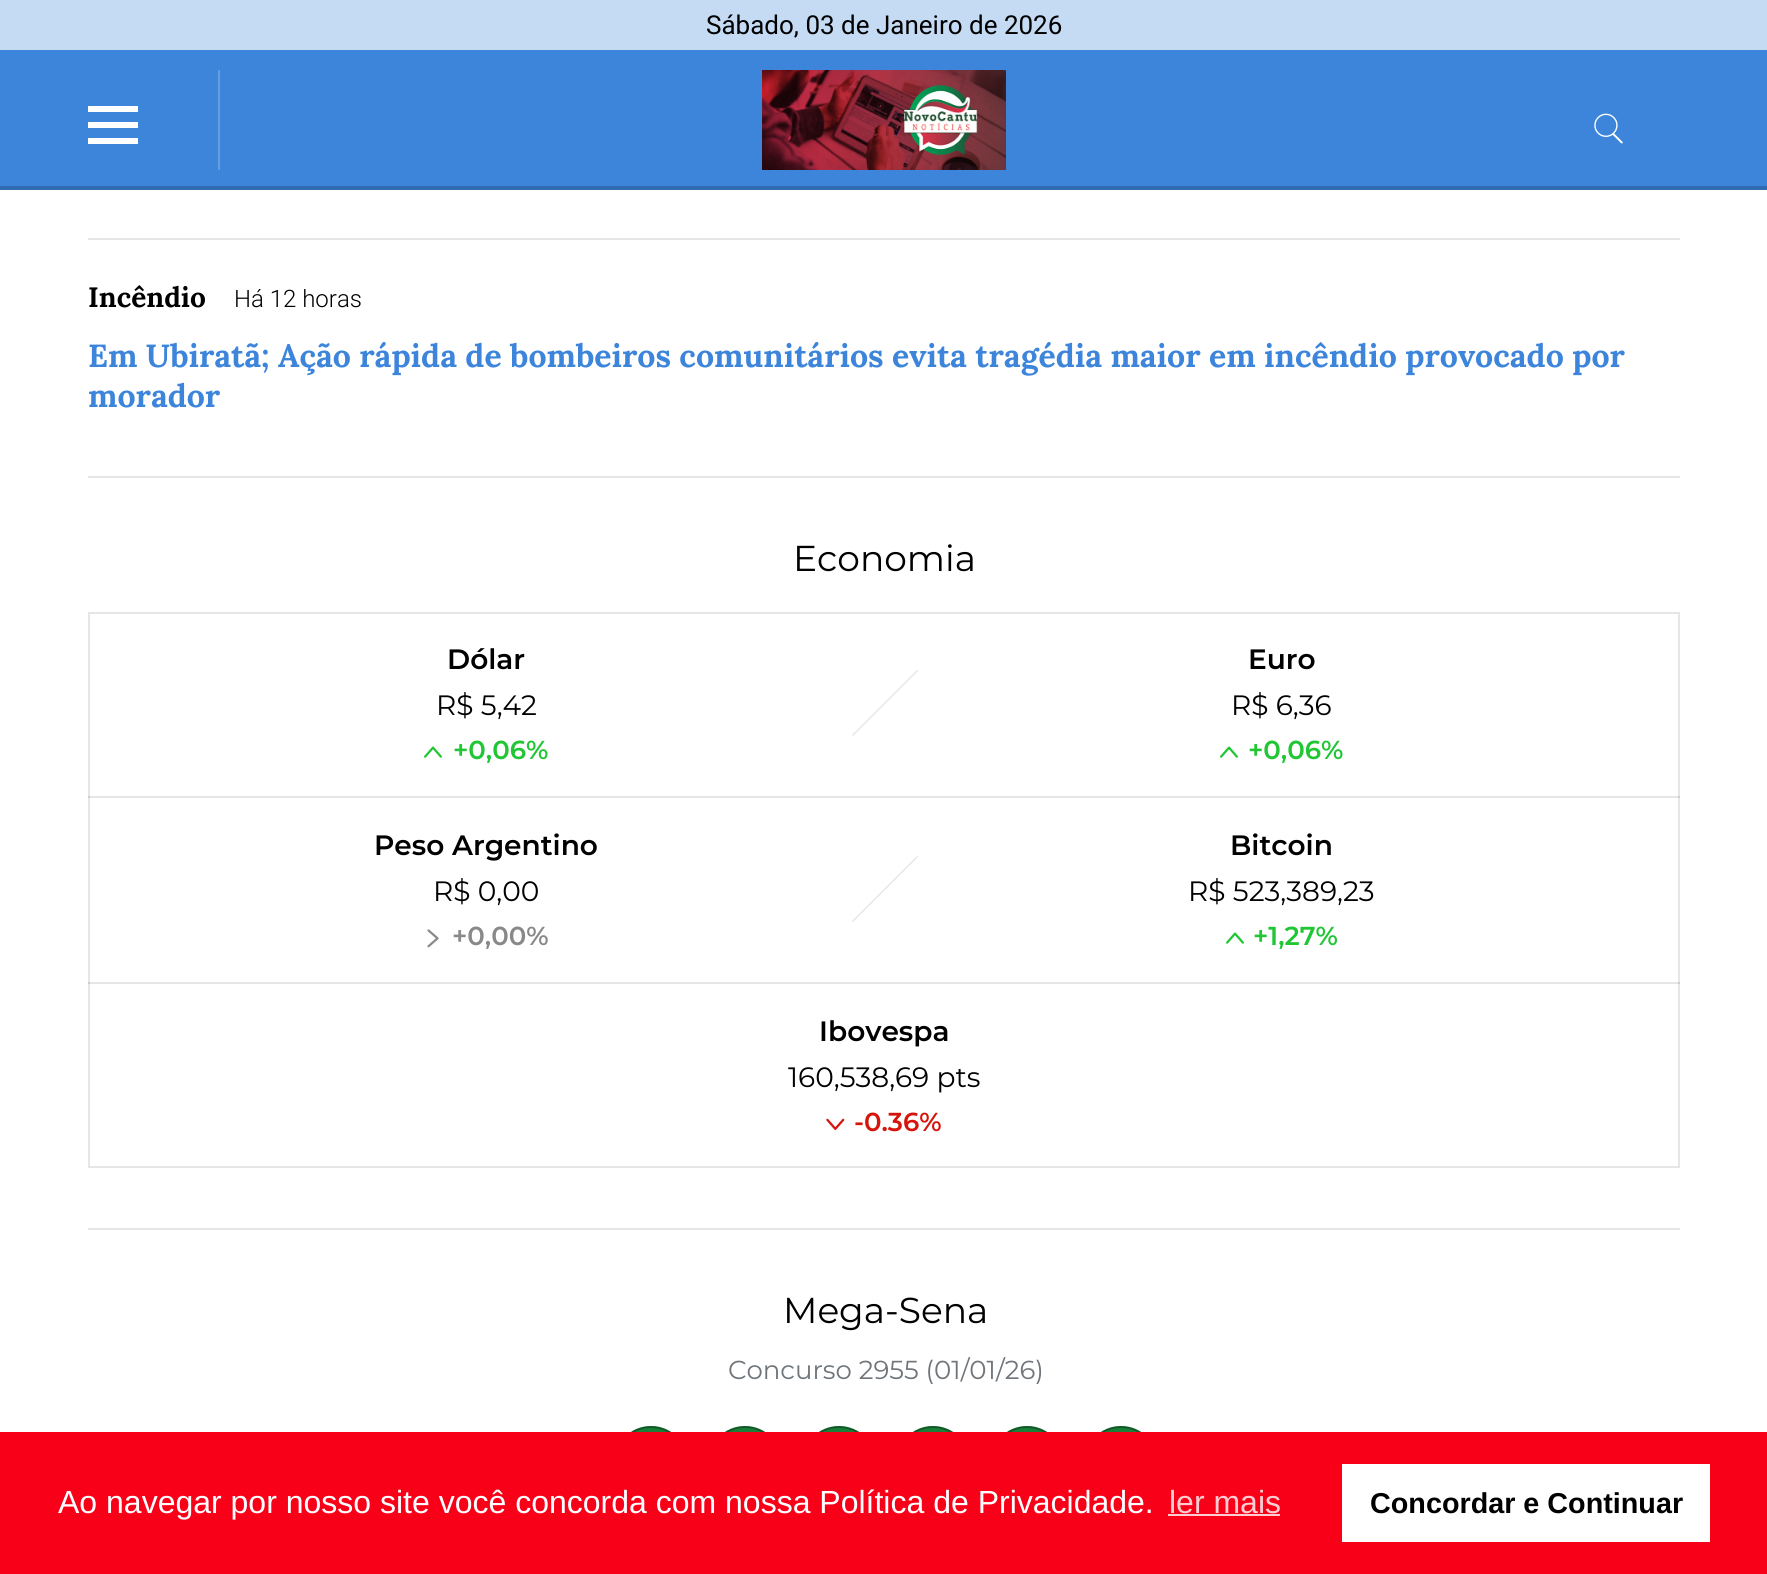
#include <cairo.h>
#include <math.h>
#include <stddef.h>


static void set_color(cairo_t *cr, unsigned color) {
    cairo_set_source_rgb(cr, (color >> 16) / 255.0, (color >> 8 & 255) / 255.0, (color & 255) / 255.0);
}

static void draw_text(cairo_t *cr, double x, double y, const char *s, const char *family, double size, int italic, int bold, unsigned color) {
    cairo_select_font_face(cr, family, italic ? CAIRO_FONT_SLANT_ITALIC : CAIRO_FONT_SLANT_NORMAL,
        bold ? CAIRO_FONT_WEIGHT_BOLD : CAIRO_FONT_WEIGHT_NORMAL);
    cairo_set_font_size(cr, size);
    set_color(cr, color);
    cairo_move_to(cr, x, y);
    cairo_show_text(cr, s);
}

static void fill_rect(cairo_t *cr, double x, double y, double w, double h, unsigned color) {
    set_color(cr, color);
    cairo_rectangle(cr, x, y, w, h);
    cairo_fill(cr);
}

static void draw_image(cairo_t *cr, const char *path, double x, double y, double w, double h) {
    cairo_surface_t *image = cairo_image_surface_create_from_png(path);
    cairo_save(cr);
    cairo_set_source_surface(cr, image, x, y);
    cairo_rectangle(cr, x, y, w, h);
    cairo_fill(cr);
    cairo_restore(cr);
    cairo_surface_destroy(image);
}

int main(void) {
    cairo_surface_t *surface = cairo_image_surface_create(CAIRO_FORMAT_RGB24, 1767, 1574);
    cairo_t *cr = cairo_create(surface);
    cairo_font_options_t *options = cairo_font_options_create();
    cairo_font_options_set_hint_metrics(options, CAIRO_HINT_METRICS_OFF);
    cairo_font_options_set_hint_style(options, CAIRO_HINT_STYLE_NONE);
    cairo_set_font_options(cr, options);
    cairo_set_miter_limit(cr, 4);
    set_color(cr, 0xFFFFFF);
    cairo_paint(cr);
    fill_rect(cr, 0, 0, 1767, 50, 0xC5DBF4);
    draw_text(cr, 706, 34, "Sábado, 03 de Janeiro de 2026", "Roboto", 26, 0, 0, 0x000000);
    fill_rect(cr, 0, 50, 1767, 136, 0x3C85DB);
    fill_rect(cr, 218, 70, 2, 100, 0x639DE2);
    fill_rect(cr, 88, 106, 50, 6, 0xFFFFFF);
    fill_rect(cr, 88, 122, 50, 6, 0xFFFFFF);
    fill_rect(cr, 88, 138, 50, 6, 0xFFFFFF);
    draw_image(cr, "assets/img1.png", 762, 70, 244, 100);
    draw_image(cr, "assets/img2.png", 1594, 113, 29, 31);
    fill_rect(cr, 0, 186, 1767, 4, 0x306AAF);
    fill_rect(cr, 88, 476, 1592, 2, 0xE6E6E6);
    fill_rect(cr, 88, 238, 1592, 2, 0xE6E6E6);
    draw_text(cr, 88, 307, "Incêndio", "Lora", 28, 0, 1, 0x000000);
    draw_text(cr, 234, 307, "Há 12 horas", "Roboto Light", 24, 0, 0, 0x000000);
    draw_text(cr, 88, 367, "Em Ubiratã; Ação rápida de bombeiros comunitários evita tragédia maior em incêndio provocado por", "Lora", 32, 0, 1, 0x3C85DB);
    draw_text(cr, 88, 407, "morador", "Lora", 32, 0, 1, 0x3C85DB);
    fill_rect(cr, 88, 1228, 1592, 2, 0xE6E6E6);
    draw_text(cr, 793, 571, "Economia", "Montserrat", 36, 0, 0, 0x000000);
    cairo_rectangle(cr, 89, 613, 1590, 554);
    set_color(cr, 0xE6E6E6);
    cairo_stroke(cr);
    cairo_set_source_rgba(cr, 0, 0, 0, 0.1);
    cairo_rectangle(cr, 88, 796, 796, 2);
    cairo_fill(cr);
    draw_text(cr, 447, 669, "Dólar", "Montserrat SemiBold", 28, 0, 0, 0x000000);
    draw_text(cr, 436, 715, "R$ 5,42", "Montserrat", 28, 0, 0, 0x000000);
    draw_image(cr, "assets/img3.png", 424, 746, 18, 12);
    draw_text(cr, 453, 759, "+0,06%", "Montserrat SemiBold", 26, 0, 0, 0x20C634);
    cairo_set_source_rgba(cr, 0, 0, 0, 0.1);
    cairo_rectangle(cr, 884, 796, 796, 2);
    cairo_fill(cr);
    draw_text(cr, 1248, 669, "Euro", "Montserrat SemiBold", 28, 0, 0, 0x000000);
    set_color(cr, 0xE6E6E6);
    cairo_new_path(cr);
    cairo_move_to(cr, 917, 670);
    cairo_line_to(cr, 918, 671);
    cairo_line_to(cr, 853, 736);
    cairo_line_to(cr, 852, 735);
    cairo_close_path(cr);
    cairo_fill(cr);
    draw_text(cr, 1231, 715, "R$ 6,36", "Montserrat", 28, 0, 0, 0x000000);
    draw_image(cr, "assets/img3.png", 1220, 746, 18, 12);
    draw_text(cr, 1248, 759, "+0,06%", "Montserrat SemiBold", 26, 0, 0, 0x20C634);
    cairo_set_source_rgba(cr, 0, 0, 0, 0.1);
    cairo_rectangle(cr, 88, 982, 796, 2);
    cairo_fill(cr);
    draw_text(cr, 374, 855, "Peso Argentino", "Montserrat SemiBold", 28, 0, 0, 0x000000);
    draw_text(cr, 433, 901, "R$ 0,00", "Montserrat", 28, 0, 0, 0x000000);
    draw_image(cr, "assets/img4.png", 427, 929, 12, 19);
    draw_text(cr, 452, 945, "+0,00%", "Montserrat SemiBold", 26, 0, 0, 0x898989);
    cairo_set_source_rgba(cr, 0, 0, 0, 0.1);
    cairo_rectangle(cr, 884, 982, 796, 2);
    cairo_fill(cr);
    draw_text(cr, 1230, 855, "Bitcoin", "Montserrat SemiBold", 28, 0, 0, 0x000000);
    set_color(cr, 0xE6E6E6);
    cairo_new_path(cr);
    cairo_move_to(cr, 917, 856);
    cairo_line_to(cr, 918, 857);
    cairo_line_to(cr, 853, 922);
    cairo_line_to(cr, 852, 921);
    cairo_close_path(cr);
    cairo_fill(cr);
    draw_text(cr, 1188, 901, "R$ 523,389,23", "Montserrat", 28, 0, 0, 0x000000);
    draw_image(cr, "assets/img3.png", 1226, 932, 18, 12);
    draw_text(cr, 1253, 945, "+1,27%", "Montserrat SemiBold", 26, 0, 0, 0x20C634);
    draw_text(cr, 819, 1041, "Ibovespa", "Montserrat SemiBold", 28, 0, 0, 0x000000);
    draw_text(cr, 788, 1087, "160,538,69 pts", "Montserrat", 28, 0, 0, 0x000000);
    draw_image(cr, "assets/img5.png", 826, 1118, 19, 12);
    draw_text(cr, 854, 1131, "-0.36%", "Montserrat SemiBold", 26, 0, 0, 0xD5150B);
    draw_text(cr, 783, 1323, "Mega-Sena", "Montserrat", 36, 0, 0, 0x000000);
    draw_text(cr, 728, 1379, "Concurso 2955 (01/01/26)", "Montserrat", 26, 0, 0, 0x70757A);
    set_color(cr, 0x188038);
    cairo_new_path(cr);
    cairo_arc(cr, 651, 1463, 37, 0, 2 * M_PI);
    cairo_fill(cr);
    cairo_arc(cr, 651, 1463, 36, 0, 2 * M_PI);
    cairo_set_source_rgba(cr, 0, 0, 0, 0.3);
    cairo_stroke(cr);
    set_color(cr, 0x188038);
    cairo_arc(cr, 745, 1463, 37, 0, 2 * M_PI);
    cairo_fill(cr);
    cairo_arc(cr, 745, 1463, 36, 0, 2 * M_PI);
    cairo_set_source_rgba(cr, 0, 0, 0, 0.3);
    cairo_stroke(cr);
    set_color(cr, 0x188038);
    cairo_arc(cr, 839, 1463, 37, 0, 2 * M_PI);
    cairo_fill(cr);
    cairo_arc(cr, 839, 1463, 36, 0, 2 * M_PI);
    cairo_set_source_rgba(cr, 0, 0, 0, 0.3);
    cairo_stroke(cr);
    set_color(cr, 0x188038);
    cairo_arc(cr, 933, 1463, 37, 0, 2 * M_PI);
    cairo_fill(cr);
    cairo_arc(cr, 933, 1463, 36, 0, 2 * M_PI);
    cairo_set_source_rgba(cr, 0, 0, 0, 0.3);
    cairo_stroke(cr);
    set_color(cr, 0x188038);
    cairo_arc(cr, 1027, 1463, 37, 0, 2 * M_PI);
    cairo_fill(cr);
    cairo_arc(cr, 1027, 1463, 36, 0, 2 * M_PI);
    cairo_set_source_rgba(cr, 0, 0, 0, 0.3);
    cairo_stroke(cr);
    set_color(cr, 0x188038);
    cairo_arc(cr, 1121, 1463, 37, 0, 2 * M_PI);
    cairo_fill(cr);
    cairo_arc(cr, 1121, 1463, 36, 0, 2 * M_PI);
    cairo_set_source_rgba(cr, 0, 0, 0, 0.3);
    cairo_stroke(cr);
    fill_rect(cr, 0, 1432, 1767, 142, 0xF90019);
    draw_text(cr, 58, 1513, "Ao navegar por nosso site você concorda com nossa Política de Privacidade.", "Liberation Sans", 32, 0, 0, 0xFFFFFF);
    draw_text(cr, 1169, 1513, "ler mais", "Liberation Sans", 32, 0, 0, 0xFECCD1);
    fill_rect(cr, 1168, 1514, 112, 2, 0xFECCD1);
    fill_rect(cr, 1342, 1464, 368, 78, 0xFFFFFF);
    draw_text(cr, 1370, 1513, "Concordar e Continuar", "Liberation Sans", 28.75, 0, 1, 0x000000);
    cairo_surface_write_to_png(surface, "output.png");
    cairo_font_options_destroy(options);
    cairo_destroy(cr);
    cairo_surface_destroy(surface);
    return 0;
}
